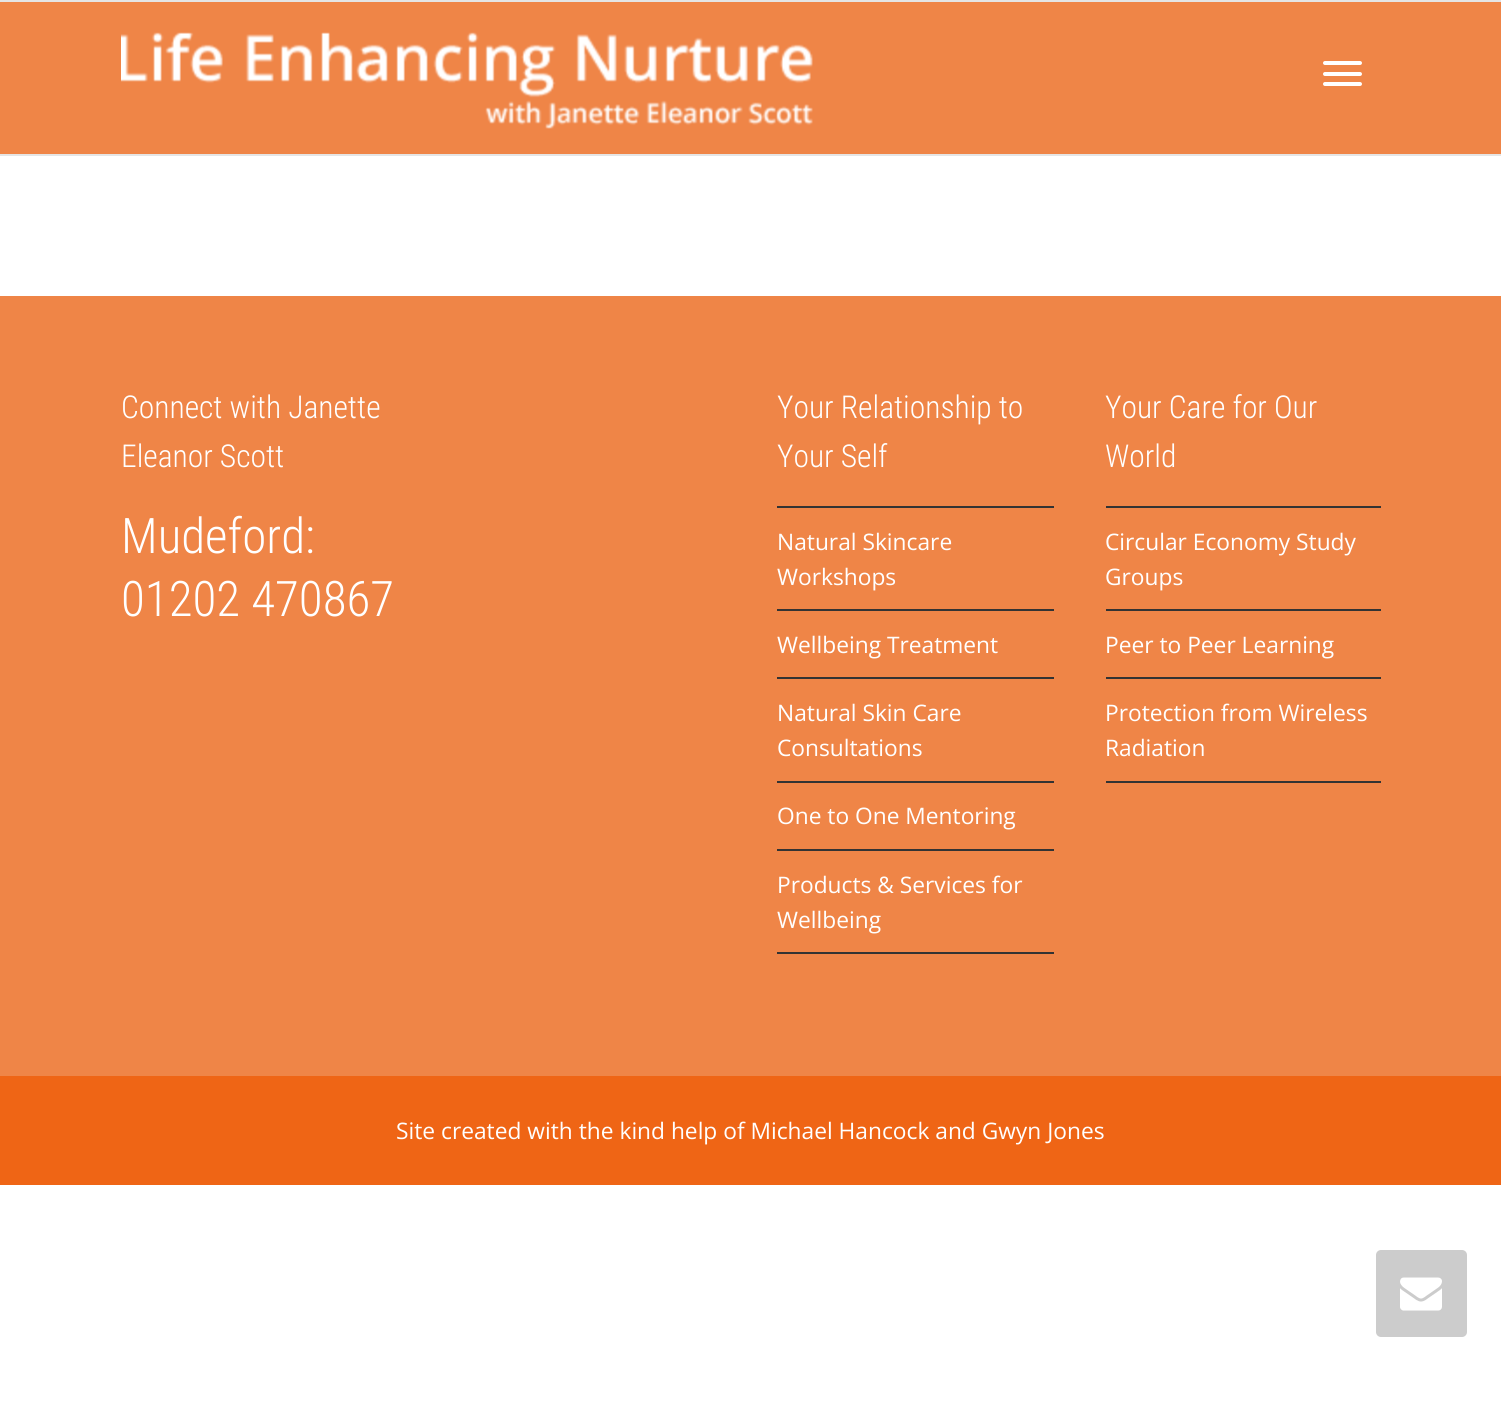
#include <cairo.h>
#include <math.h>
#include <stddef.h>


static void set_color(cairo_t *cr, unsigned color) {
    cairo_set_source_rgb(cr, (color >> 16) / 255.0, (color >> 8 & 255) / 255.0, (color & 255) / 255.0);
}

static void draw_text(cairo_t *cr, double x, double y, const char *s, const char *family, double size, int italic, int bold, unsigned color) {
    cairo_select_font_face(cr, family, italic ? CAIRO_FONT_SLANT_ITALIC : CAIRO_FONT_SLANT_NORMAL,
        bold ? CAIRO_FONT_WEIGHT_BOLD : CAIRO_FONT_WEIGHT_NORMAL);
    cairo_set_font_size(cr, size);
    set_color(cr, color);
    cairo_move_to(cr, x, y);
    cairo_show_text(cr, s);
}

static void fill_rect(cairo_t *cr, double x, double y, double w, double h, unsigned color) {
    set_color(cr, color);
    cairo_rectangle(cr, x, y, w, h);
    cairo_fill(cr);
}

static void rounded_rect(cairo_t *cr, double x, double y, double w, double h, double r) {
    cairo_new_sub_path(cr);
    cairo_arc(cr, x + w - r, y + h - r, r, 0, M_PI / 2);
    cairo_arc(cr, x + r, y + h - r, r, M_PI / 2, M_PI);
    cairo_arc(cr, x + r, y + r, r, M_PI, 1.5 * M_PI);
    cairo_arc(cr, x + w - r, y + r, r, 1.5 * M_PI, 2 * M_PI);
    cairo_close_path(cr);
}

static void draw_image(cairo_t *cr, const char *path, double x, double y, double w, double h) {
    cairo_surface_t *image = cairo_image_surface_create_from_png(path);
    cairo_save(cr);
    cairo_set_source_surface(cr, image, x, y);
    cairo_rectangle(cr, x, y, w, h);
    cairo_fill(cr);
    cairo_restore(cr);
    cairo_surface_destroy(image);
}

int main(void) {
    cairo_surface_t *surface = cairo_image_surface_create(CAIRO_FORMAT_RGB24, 1501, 1424);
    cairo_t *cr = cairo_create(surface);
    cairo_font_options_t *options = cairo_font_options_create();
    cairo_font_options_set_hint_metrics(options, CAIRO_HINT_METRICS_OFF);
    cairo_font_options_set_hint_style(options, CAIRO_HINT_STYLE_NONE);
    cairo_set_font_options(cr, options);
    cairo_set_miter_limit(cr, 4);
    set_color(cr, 0xFFFFFF);
    cairo_paint(cr);
    fill_rect(cr, 0, 0, 1501, 2, 0xE5E5E5);
    fill_rect(cr, 0, 2, 1501, 152, 0xEF8547);
    fill_rect(cr, 0, 154, 1501, 2, 0xE5E5E5);
    draw_image(cr, "assets/img1.png", 121, 32, 692, 97);
    set_color(cr, 0xFFFFFF);
    rounded_rect(cr, 1323, 61, 39, 4, 2);
    cairo_fill(cr);
    rounded_rect(cr, 1323, 72, 39, 4, 2);
    cairo_fill(cr);
    rounded_rect(cr, 1323, 82, 39, 4, 2);
    cairo_fill(cr);
    fill_rect(cr, 0, 296, 1501, 780, 0xEF8547);
    draw_text(cr, 121, 418, "Connect with Janette", "Roboto Condensed Light", 31.5, 0, 0, 0xFFFFFF);
    draw_text(cr, 121, 467, "Eleanor Scott", "Roboto Condensed Light", 31.5, 0, 0, 0xFFFFFF);
    draw_text(cr, 121, 553, "Mudeford:", "Roboto Condensed Light", 49, 0, 0, 0xFFFFFF);
    draw_text(cr, 121, 616, "01202 470867", "Roboto Condensed Light", 49, 0, 0, 0xFFFFFF);
    draw_text(cr, 777, 418, "Your Relationship to", "Roboto Condensed Light", 31.5, 0, 0, 0xFFFFFF);
    draw_text(cr, 777, 467, "Your Self", "Roboto Condensed Light", 31.5, 0, 0, 0xFFFFFF);
    fill_rect(cr, 777, 506, 277, 2, 0x333333);
    fill_rect(cr, 777, 609, 277, 2, 0x333333);
    draw_text(cr, 777, 550, "Natural Skincare", "Open Sans", 22.75, 0, 0, 0xFFFFFF);
    draw_text(cr, 777, 585, "Workshops", "Open Sans", 22.75, 0, 0, 0xFFFFFF);
    fill_rect(cr, 777, 677, 277, 2, 0x333333);
    draw_text(cr, 777, 653, "Wellbeing Treatment", "Open Sans", 22.75, 0, 0, 0xFFFFFF);
    fill_rect(cr, 777, 781, 277, 2, 0x333333);
    draw_text(cr, 777, 721, "Natural Skin Care", "Open Sans", 22.75, 0, 0, 0xFFFFFF);
    draw_text(cr, 777, 756, "Consultations", "Open Sans", 22.75, 0, 0, 0xFFFFFF);
    fill_rect(cr, 777, 849, 277, 2, 0x333333);
    draw_text(cr, 777, 824, "One to One Mentoring", "Open Sans", 22.75, 0, 0, 0xFFFFFF);
    fill_rect(cr, 777, 952, 277, 2, 0x333333);
    draw_text(cr, 777, 893, "Products & Services for", "Open Sans", 22.75, 0, 0, 0xFFFFFF);
    draw_text(cr, 777, 928, "Wellbeing", "Open Sans", 22.75, 0, 0, 0xFFFFFF);
    draw_text(cr, 1105, 418, "Your Care for Our", "Roboto Condensed Light", 31.5, 0, 0, 0xFFFFFF);
    draw_text(cr, 1105, 467, "World", "Roboto Condensed Light", 31.5, 0, 0, 0xFFFFFF);
    fill_rect(cr, 1106, 506, 275, 2, 0x333333);
    fill_rect(cr, 1106, 609, 275, 2, 0x333333);
    draw_text(cr, 1105, 550, "Circular Economy Study", "Open Sans", 22.75, 0, 0, 0xFFFFFF);
    draw_text(cr, 1105, 585, "Groups", "Open Sans", 22.75, 0, 0, 0xFFFFFF);
    fill_rect(cr, 1106, 677, 275, 2, 0x333333);
    draw_text(cr, 1105, 653, "Peer to Peer Learning", "Open Sans", 22.75, 0, 0, 0xFFFFFF);
    fill_rect(cr, 1106, 781, 275, 2, 0x333333);
    draw_text(cr, 1105, 721, "Protection from Wireless", "Open Sans", 22.75, 0, 0, 0xFFFFFF);
    draw_text(cr, 1105, 756, "Radiation", "Open Sans", 22.75, 0, 0, 0xFFFFFF);
    fill_rect(cr, 0, 1076, 1501, 109, 0xEF6515);
    draw_text(cr, 396, 1139, "Site created with the kind help of Michael Hancock and Gwyn Jones", "Open Sans", 22.75, 0, 0, 0xFFFFFF);
    set_color(cr, 0xCCCCCC);
    rounded_rect(cr, 1376, 1250, 91, 87, 5);
    cairo_fill(cr);
    draw_image(cr, "assets/img2.png", 1400, 1277, 42, 34);
    cairo_surface_write_to_png(surface, "output.png");
    cairo_font_options_destroy(options);
    cairo_destroy(cr);
    cairo_surface_destroy(surface);
    return 0;
}
